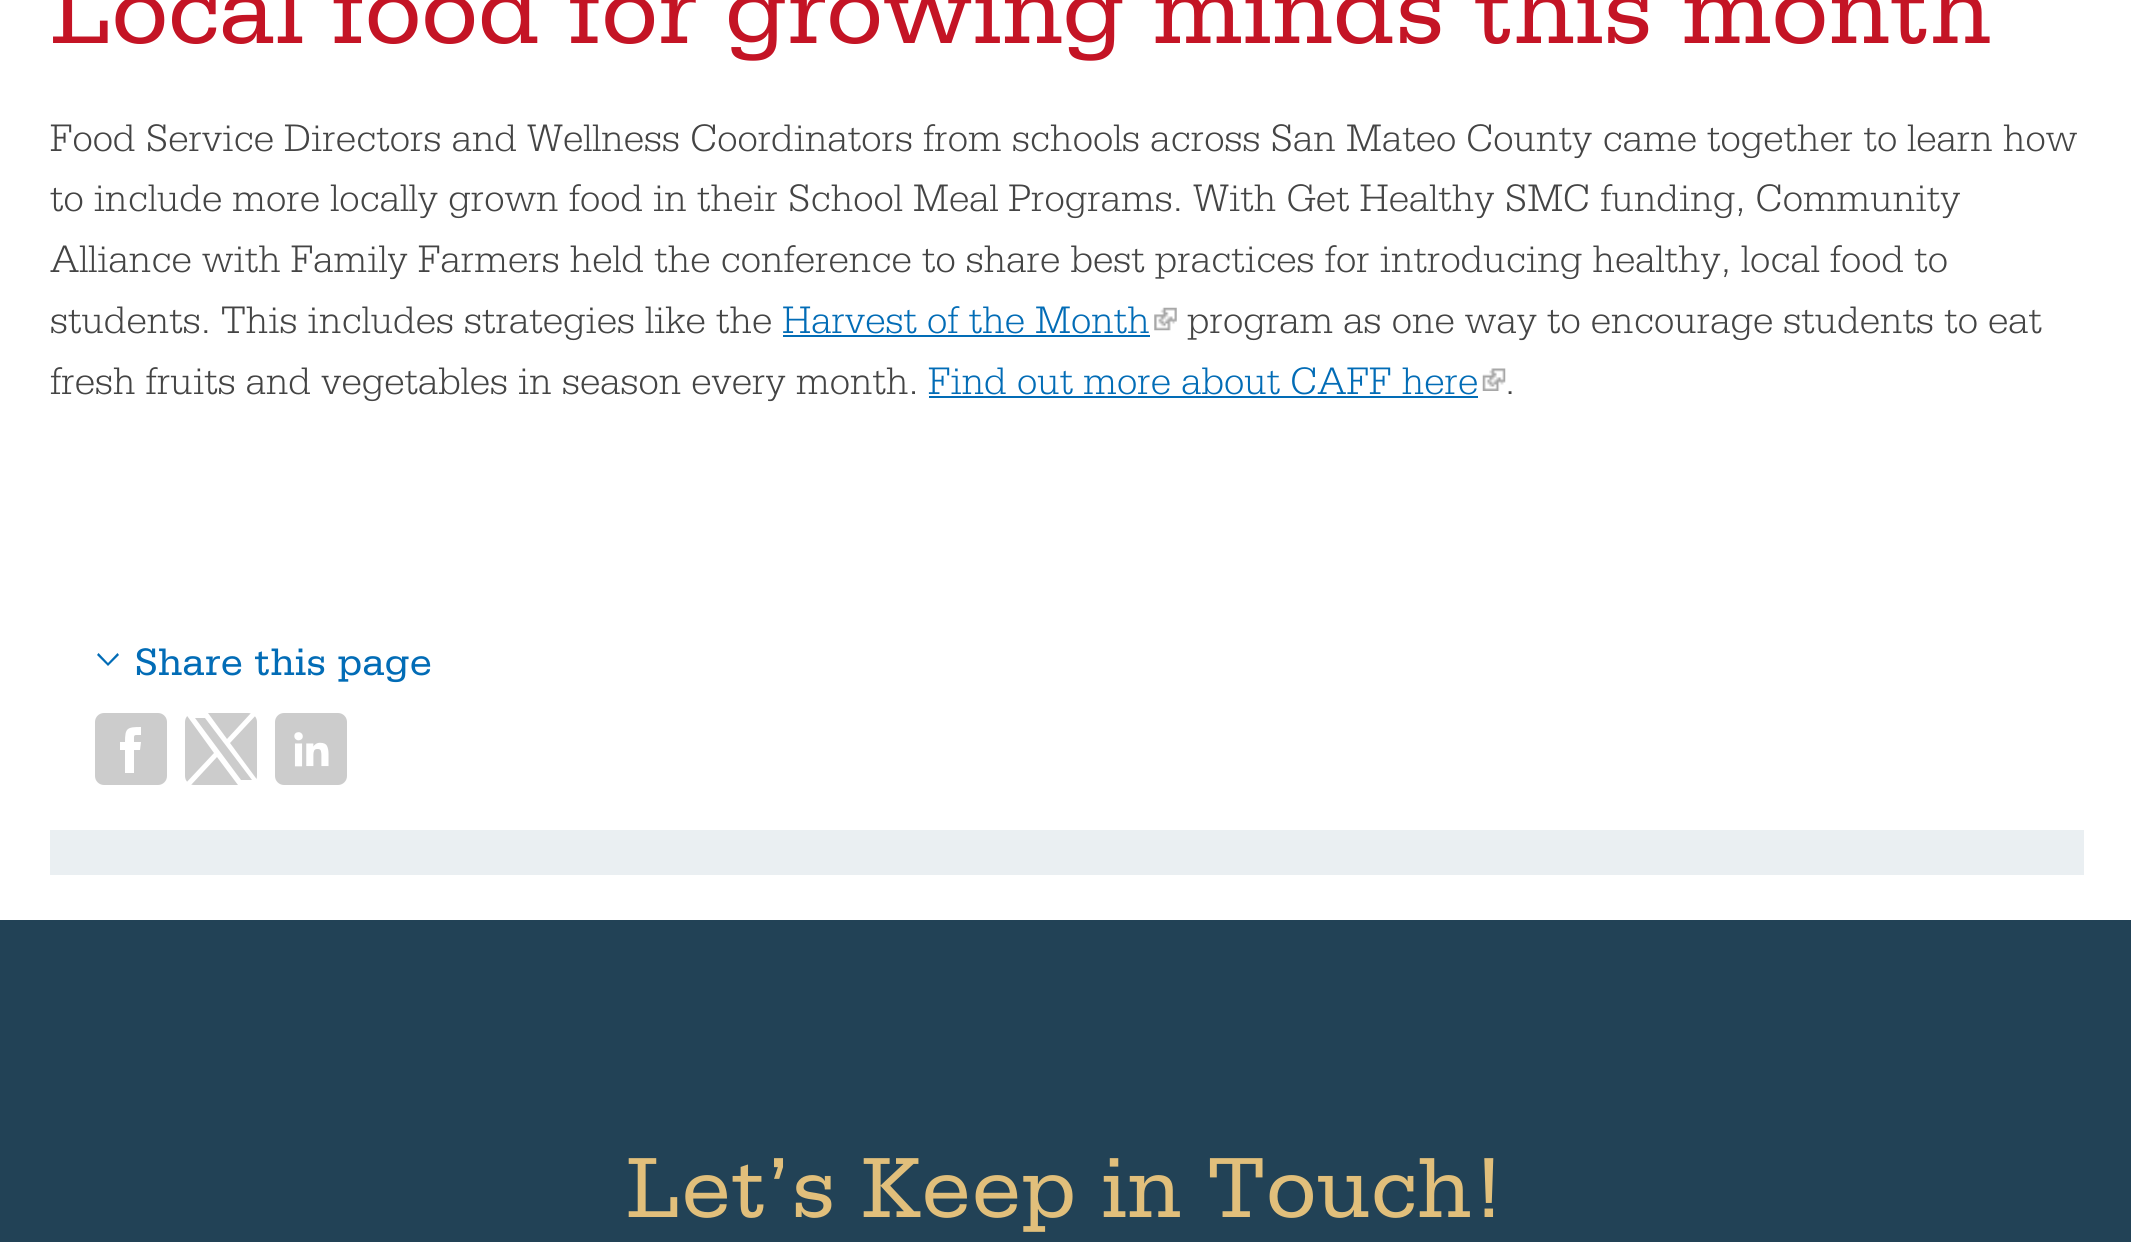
#include <cairo.h>
#include <math.h>
#include <stddef.h>


static void set_color(cairo_t *cr, unsigned color) {
    cairo_set_source_rgb(cr, (color >> 16) / 255.0, (color >> 8 & 255) / 255.0, (color & 255) / 255.0);
}

static void draw_text(cairo_t *cr, double x, double y, const char *s, const char *family, double size, int italic, int bold, unsigned color) {
    cairo_select_font_face(cr, family, italic ? CAIRO_FONT_SLANT_ITALIC : CAIRO_FONT_SLANT_NORMAL,
        bold ? CAIRO_FONT_WEIGHT_BOLD : CAIRO_FONT_WEIGHT_NORMAL);
    cairo_set_font_size(cr, size);
    set_color(cr, color);
    cairo_move_to(cr, x, y);
    cairo_show_text(cr, s);
}

static void fill_rect(cairo_t *cr, double x, double y, double w, double h, unsigned color) {
    set_color(cr, color);
    cairo_rectangle(cr, x, y, w, h);
    cairo_fill(cr);
}

static void rounded_rect(cairo_t *cr, double x, double y, double w, double h, double r) {
    cairo_new_sub_path(cr);
    cairo_arc(cr, x + w - r, y + h - r, r, 0, M_PI / 2);
    cairo_arc(cr, x + r, y + h - r, r, M_PI / 2, M_PI);
    cairo_arc(cr, x + r, y + r, r, M_PI, 1.5 * M_PI);
    cairo_arc(cr, x + w - r, y + r, r, 1.5 * M_PI, 2 * M_PI);
    cairo_close_path(cr);
}

static void draw_image(cairo_t *cr, const char *path, double x, double y, double w, double h) {
    cairo_surface_t *image = cairo_image_surface_create_from_png(path);
    cairo_save(cr);
    cairo_set_source_surface(cr, image, x, y);
    cairo_rectangle(cr, x, y, w, h);
    cairo_fill(cr);
    cairo_restore(cr);
    cairo_surface_destroy(image);
}

int main(void) {
    cairo_surface_t *surface = cairo_image_surface_create(CAIRO_FORMAT_RGB24, 2131, 1242);
    cairo_t *cr = cairo_create(surface);
    cairo_font_options_t *options = cairo_font_options_create();
    cairo_font_options_set_hint_metrics(options, CAIRO_HINT_METRICS_OFF);
    cairo_font_options_set_hint_style(options, CAIRO_HINT_STYLE_NONE);
    cairo_set_font_options(cr, options);
    cairo_set_miter_limit(cr, 4);
    set_color(cr, 0xFFFFFF);
    cairo_paint(cr);
    draw_text(cr, 50, 43, "Local food for growing minds this month", "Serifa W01", 101.25, 0, 0, 0xC41425);
    draw_text(cr, 50, 151, "Food Service Directors and Wellness Coordinators from schools across San Mateo County came together to learn how", "Serifa W01 Light", 40.5, 0, 0, 0x444444);
    draw_text(cr, 50, 211, "to include more locally grown food in their School Meal Programs. With Get Healthy SMC funding, Community", "Serifa W01 Light", 40.5, 0, 0, 0x444444);
    draw_text(cr, 50, 272, "Alliance with Family Farmers held the conference to share best practices for introducing healthy, local food to", "Serifa W01 Light", 40.5, 0, 0, 0x444444);
    draw_text(cr, 50, 333, "students. This includes strategies like the", "Serifa W01 Light", 40.5, 0, 0, 0x444444);
    draw_text(cr, 782, 333, "Harvest of the Month", "Serifa W01 Light", 40.5, 0, 0, 0x026CB6);
    fill_rect(cr, 783, 335, 367, 2, 0x026CB6);
    draw_image(cr, "assets/img1.png", 1154, 307, 23, 24);
    draw_text(cr, 1187, 333, "program as one way to encourage students to eat", "Serifa W01 Light", 40.5, 0, 0, 0x444444);
    draw_text(cr, 50, 394, "fresh fruits and vegetables in season every month.", "Serifa W01 Light", 40.5, 0, 0, 0x444444);
    draw_text(cr, 928, 394, "Find out more about CAFF here", "Serifa W01 Light", 40.5, 0, 0, 0x026CB6);
    fill_rect(cr, 929, 396, 549, 2, 0x026CB6);
    draw_image(cr, "assets/img2.png", 1482, 368, 24, 23);
    draw_text(cr, 1505, 394, ".", "Serifa W01 Light", 40.5, 0, 0, 0x444444);
    fill_rect(cr, 50, 830, 2034, 45, 0xEAEFF2);
    set_color(cr, 0x026CB6);
    cairo_new_path(cr);
    cairo_move_to(cr, 108, 666);
    cairo_line_to(cr, 97, 655);
    cairo_line_to(cr, 98.5, 653);
    cairo_line_to(cr, 108, 663);
    cairo_line_to(cr, 117.5, 653);
    cairo_line_to(cr, 119, 655);
    cairo_close_path(cr);
    cairo_fill(cr);
    draw_text(cr, 135, 675, "Share this page", "Serifa W01", 40.5, 0, 0, 0x026CB6);
    set_color(cr, 0xCCCCCC);
    rounded_rect(cr, 95, 713, 72, 72, 9);
    cairo_fill(cr);
    set_color(cr, 0xFFFFFF);
    cairo_new_path(cr);
    cairo_move_to(cr, 140, 750);
    cairo_line_to(cr, 134, 750);
    cairo_line_to(cr, 134, 773);
    cairo_line_to(cr, 125, 773);
    cairo_line_to(cr, 125, 750);
    cairo_line_to(cr, 120, 750);
    cairo_line_to(cr, 120, 742);
    cairo_line_to(cr, 125, 742);
    cairo_curve_to(cr, 125, 728, 127, 727, 141, 727);
    cairo_line_to(cr, 141, 735);
    cairo_curve_to(cr, 133, 735, 134, 734, 134, 742);
    cairo_line_to(cr, 141, 742);
    cairo_close_path(cr);
    cairo_fill(cr);
    set_color(cr, 0xCCCCCC);
    rounded_rect(cr, 185, 713, 72, 72, 9);
    cairo_fill(cr);
    set_color(cr, 0xFFFFFF);
    cairo_new_path(cr);
    cairo_move_to(cr, 185, 713);
    cairo_line_to(cr, 214, 753);
    cairo_line_to(cr, 184, 785);
    cairo_line_to(cr, 191, 785);
    cairo_line_to(cr, 217, 757);
    cairo_line_to(cr, 238, 785);
    cairo_line_to(cr, 261, 785);
    cairo_line_to(cr, 230, 743);
    cairo_line_to(cr, 258, 713);
    cairo_line_to(cr, 251, 713);
    cairo_line_to(cr, 227, 739);
    cairo_line_to(cr, 208, 713);
    cairo_close_path(cr);
    cairo_move_to(cr, 195, 718);
    cairo_line_to(cr, 205, 718);
    cairo_line_to(cr, 252, 780);
    cairo_line_to(cr, 241, 780);
    cairo_close_path(cr);
    cairo_fill(cr);
    set_color(cr, 0xCCCCCC);
    rounded_rect(cr, 275, 713, 72, 72, 9);
    cairo_fill(cr);
    draw_image(cr, "assets/img3.png", 294, 732, 35, 35);
    fill_rect(cr, 0, 920, 2131, 322, 0x224256);
    draw_text(cr, 626, 1217, "Let’s Keep in Touch!", "Serifa W01", 90, 0, 0, 0xE1BF7B);
    cairo_surface_write_to_png(surface, "output.png");
    cairo_font_options_destroy(options);
    cairo_destroy(cr);
    cairo_surface_destroy(surface);
    return 0;
}
